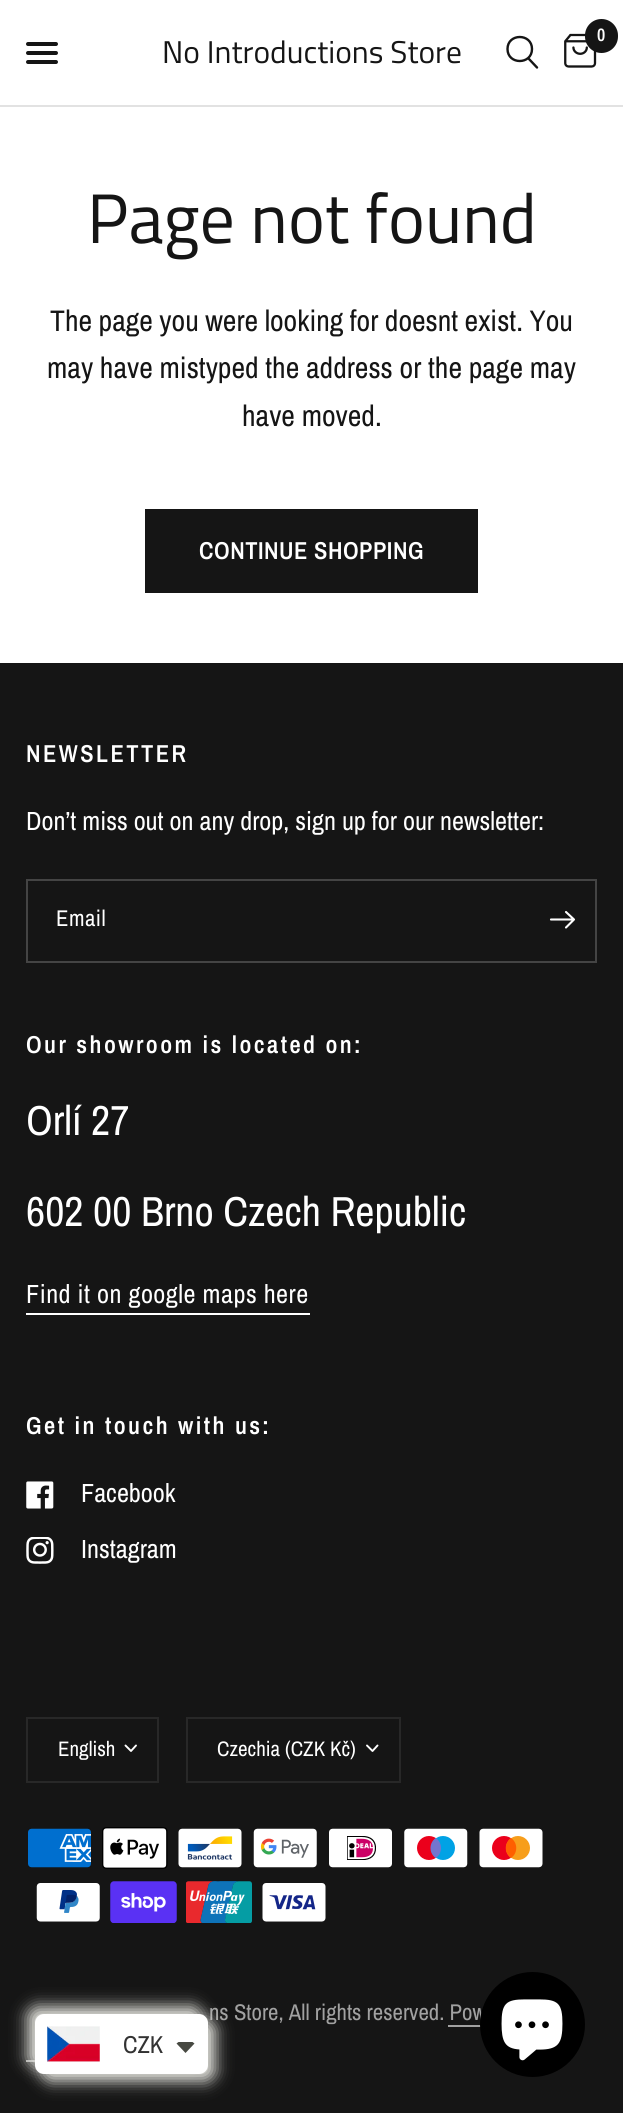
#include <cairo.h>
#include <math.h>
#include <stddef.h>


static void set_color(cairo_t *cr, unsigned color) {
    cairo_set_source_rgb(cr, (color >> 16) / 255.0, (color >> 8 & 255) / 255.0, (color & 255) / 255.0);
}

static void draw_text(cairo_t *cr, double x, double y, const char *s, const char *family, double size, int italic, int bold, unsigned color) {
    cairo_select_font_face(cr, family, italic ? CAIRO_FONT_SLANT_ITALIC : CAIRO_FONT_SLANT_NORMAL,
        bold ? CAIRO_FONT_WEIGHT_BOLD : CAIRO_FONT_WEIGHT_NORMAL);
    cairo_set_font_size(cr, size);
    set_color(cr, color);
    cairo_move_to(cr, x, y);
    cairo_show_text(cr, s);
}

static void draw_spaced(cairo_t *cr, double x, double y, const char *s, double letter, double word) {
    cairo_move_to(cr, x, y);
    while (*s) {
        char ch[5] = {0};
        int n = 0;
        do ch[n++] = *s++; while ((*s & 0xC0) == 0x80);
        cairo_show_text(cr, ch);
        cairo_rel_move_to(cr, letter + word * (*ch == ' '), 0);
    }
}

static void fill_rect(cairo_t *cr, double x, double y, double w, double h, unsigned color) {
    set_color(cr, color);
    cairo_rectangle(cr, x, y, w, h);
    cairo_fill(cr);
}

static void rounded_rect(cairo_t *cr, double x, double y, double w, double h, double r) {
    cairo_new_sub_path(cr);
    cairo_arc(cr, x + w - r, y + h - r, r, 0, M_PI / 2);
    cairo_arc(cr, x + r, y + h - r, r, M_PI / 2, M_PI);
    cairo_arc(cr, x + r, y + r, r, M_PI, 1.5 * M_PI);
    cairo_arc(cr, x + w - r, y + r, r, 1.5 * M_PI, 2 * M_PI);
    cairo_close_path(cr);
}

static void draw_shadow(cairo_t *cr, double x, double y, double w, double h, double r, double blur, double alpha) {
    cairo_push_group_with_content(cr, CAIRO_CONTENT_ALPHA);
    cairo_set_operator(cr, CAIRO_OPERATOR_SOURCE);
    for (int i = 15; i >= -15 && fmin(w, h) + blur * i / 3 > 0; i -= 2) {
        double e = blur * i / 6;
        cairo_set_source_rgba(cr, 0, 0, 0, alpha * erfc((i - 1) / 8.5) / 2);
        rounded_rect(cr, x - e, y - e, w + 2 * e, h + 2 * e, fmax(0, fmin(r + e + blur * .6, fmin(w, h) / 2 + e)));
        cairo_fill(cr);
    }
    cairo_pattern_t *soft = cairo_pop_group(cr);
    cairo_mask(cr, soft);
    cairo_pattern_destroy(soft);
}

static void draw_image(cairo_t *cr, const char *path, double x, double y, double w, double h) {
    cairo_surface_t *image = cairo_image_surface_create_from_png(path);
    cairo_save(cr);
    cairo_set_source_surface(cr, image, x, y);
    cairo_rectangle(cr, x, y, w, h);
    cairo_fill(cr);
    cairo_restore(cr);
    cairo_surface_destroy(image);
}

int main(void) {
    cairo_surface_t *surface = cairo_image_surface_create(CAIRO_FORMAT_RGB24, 623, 2113);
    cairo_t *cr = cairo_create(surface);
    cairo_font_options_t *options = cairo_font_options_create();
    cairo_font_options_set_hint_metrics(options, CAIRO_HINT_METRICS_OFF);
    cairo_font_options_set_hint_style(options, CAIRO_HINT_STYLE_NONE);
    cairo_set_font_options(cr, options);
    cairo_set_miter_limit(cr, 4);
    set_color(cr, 0xFFFFFF);
    cairo_paint(cr);
    fill_rect(cr, 0, 105, 623, 2, 0xE2E2E2);
    cairo_new_path(cr);
    cairo_move_to(cr, 528.5, 58.5);
    cairo_line_to(cr, 537, 67.5);
    cairo_move_to(cr, 532, 49);
    cairo_curve_to(cr, 532, 65, 507.5, 65, 507.5, 49);
    cairo_curve_to(cr, 507.5, 33, 532, 33, 532, 49);
    cairo_close_path(cr);
    set_color(cr, 0x151515);
    cairo_set_line_width(cr, 2.4);
    cairo_set_line_cap(cr, CAIRO_LINE_CAP_ROUND);
    cairo_set_line_join(cr, CAIRO_LINE_JOIN_ROUND);
    cairo_stroke(cr);
    draw_image(cr, "assets/img1.png", 564, 33, 33, 35);
    rounded_rect(cr, 585, 19, 33, 34, 16.5);
    cairo_fill(cr);
    draw_text(cr, 597, 41, "0", "Archivo Narrow SemiBold", 18, 0, 0, 0xFFFFFF);
    set_color(cr, 0x151515);
    rounded_rect(cr, 26, 42, 32, 4, 2);
    cairo_fill(cr);
    rounded_rect(cr, 26, 51, 32, 4, 2);
    cairo_fill(cr);
    rounded_rect(cr, 26, 60, 32, 4, 2);
    cairo_fill(cr);
    draw_text(cr, 162, 63, "No Introductions Store", "Titillium Web", 31.5, 0, 0, 0x151515);
    draw_text(cr, 87, 243, "Page not found", "Titillium Web", 70, 0, 0, 0x151515);
    cairo_select_font_face(cr, "Archivo Narrow", CAIRO_FONT_SLANT_NORMAL, CAIRO_FONT_WEIGHT_NORMAL);
    cairo_set_font_size(cr, 29.75);
    draw_spaced(cr, 50, 331, "The page you were looking for doesnt exist. You", 0, -0.25);
    draw_text(cr, 47, 378, "may have mistyped the address or the page may", "Archivo Narrow", 29.75, 0, 0, 0x151515);
    draw_text(cr, 242, 426, "have moved.", "Archivo Narrow", 29.75, 0, 0, 0x151515);
    fill_rect(cr, 145, 509, 333, 84, 0x151515);
    cairo_select_font_face(cr, "Archivo Narrow SemiBold", CAIRO_FONT_SLANT_NORMAL, CAIRO_FONT_WEIGHT_NORMAL);
    cairo_set_font_size(cr, 24.5);
    set_color(cr, 0xFFFFFF);
    draw_spaced(cr, 199, 559, "CONTINUE SHOPPING", 0.5, 0);
    fill_rect(cr, 0, 663, 623, 1450, 0x151515);
    set_color(cr, 0xFFFFFF);
    draw_spaced(cr, 26, 762, "NEWSLETTER", 2.45, 0);
    draw_text(cr, 26, 830, "Don’t miss out on any drop, sign up for our newsletter:", "Archivo Narrow", 26.25, 0, 0, 0xFFFFFF);
    cairo_rectangle(cr, 27, 880, 569, 82);
    set_color(cr, 0x444444);
    cairo_set_line_width(cr, 2);
    cairo_set_line_cap(cr, CAIRO_LINE_CAP_BUTT);
    cairo_set_line_join(cr, CAIRO_LINE_JOIN_MITER);
    cairo_stroke(cr);
    cairo_set_font_size(cr, 22.75);
    set_color(cr, 0xFFFFFF);
    draw_spaced(cr, 56, 926, "Email", 0.5, 0);
    cairo_new_path(cr);
    cairo_move_to(cr, 551, 919.5);
    cairo_line_to(cr, 572, 919.5);
    cairo_move_to(cr, 566, 912);
    cairo_line_to(cr, 574, 919.5);
    cairo_line_to(cr, 566, 927.5);
    cairo_set_line_width(cr, 2.1);
    cairo_set_line_cap(cr, CAIRO_LINE_CAP_ROUND);
    cairo_set_line_join(cr, CAIRO_LINE_JOIN_ROUND);
    cairo_stroke(cr);
    cairo_select_font_face(cr, "Archivo Narrow SemiBold", CAIRO_FONT_SLANT_NORMAL, CAIRO_FONT_WEIGHT_NORMAL);
    cairo_set_font_size(cr, 24.5);
    draw_spaced(cr, 26, 1053, "Our showroom is located on:", 2.45, 0);
    draw_text(cr, 26, 1135, "Orlí 27", "Archivo Narrow", 42, 0, 0, 0xFFFFFF);
    draw_text(cr, 26, 1226, "602 00 Brno Czech Republic", "Archivo Narrow", 42, 0, 0, 0xFFFFFF);
    cairo_set_font_size(cr, 26.25);
    draw_spaced(cr, 26, 1303, "Find it on google maps here", 0.5, 0);
    fill_rect(cr, 26, 1313, 284, 2, 0xFFFFFF);
    cairo_select_font_face(cr, "Archivo Narrow SemiBold", CAIRO_FONT_SLANT_NORMAL, CAIRO_FONT_WEIGHT_NORMAL);
    cairo_set_font_size(cr, 24.5);
    draw_spaced(cr, 26, 1434, "Get in touch with us:", 2.45, 0);
    draw_image(cr, "assets/img2.png", 26, 1481, 28, 28);
    draw_text(cr, 81, 1502, "Facebook", "Archivo Narrow", 26.25, 0, 0, 0xFFFFFF);
    draw_image(cr, "assets/img3.png", 26, 1537, 28, 27);
    draw_text(cr, 81, 1558, "Instagram", "Archivo Narrow", 26.25, 0, 0, 0xFFFFFF);
    cairo_rectangle(cr, 27, 1718, 131, 64);
    set_color(cr, 0x282828);
    cairo_set_line_width(cr, 2);
    cairo_set_line_cap(cr, CAIRO_LINE_CAP_BUTT);
    cairo_set_line_join(cr, CAIRO_LINE_JOIN_MITER);
    cairo_stroke(cr);
    draw_text(cr, 58, 1756, "English", "Archivo Narrow", 21, 0, 0, 0xFFFFFF);
    cairo_new_path(cr);
    cairo_move_to(cr, 136, 1745.5);
    cairo_line_to(cr, 131, 1751);
    cairo_line_to(cr, 125.5, 1745.5);
    cairo_set_line_width(cr, 1.9);
    cairo_set_line_cap(cr, CAIRO_LINE_CAP_ROUND);
    cairo_set_line_join(cr, CAIRO_LINE_JOIN_ROUND);
    cairo_stroke(cr);
    cairo_rectangle(cr, 187, 1718, 213, 64);
    set_color(cr, 0x282828);
    cairo_set_line_width(cr, 2);
    cairo_set_line_cap(cr, CAIRO_LINE_CAP_BUTT);
    cairo_set_line_join(cr, CAIRO_LINE_JOIN_MITER);
    cairo_stroke(cr);
    draw_text(cr, 217, 1756, "Czechia (CZK Kč)", "Archivo Narrow", 21, 0, 0, 0xFFFFFF);
    cairo_new_path(cr);
    cairo_move_to(cr, 377.5, 1745.5);
    cairo_line_to(cr, 372.5, 1751);
    cairo_line_to(cr, 367, 1745.5);
    cairo_set_line_width(cr, 1.9);
    cairo_set_line_cap(cr, CAIRO_LINE_CAP_ROUND);
    cairo_set_line_join(cr, CAIRO_LINE_JOIN_ROUND);
    cairo_stroke(cr);
    draw_image(cr, "assets/img4.png", 28, 1828, 63, 40);
    draw_image(cr, "assets/img5.png", 102, 1827, 66, 42);
    draw_image(cr, "assets/img6.png", 178, 1828, 64, 40);
    draw_image(cr, "assets/img7.png", 253, 1828, 64, 40);
    draw_image(cr, "assets/img8.png", 329, 1828, 63, 40);
    draw_image(cr, "assets/img9.png", 404, 1828, 64, 40);
    draw_image(cr, "assets/img10.png", 479, 1828, 64, 40);
    draw_image(cr, "assets/img11.png", 36, 1883, 64, 39);
    draw_image(cr, "assets/img12.png", 110, 1881, 67, 42);
    draw_image(cr, "assets/img13.png", 186, 1881, 66, 42);
    draw_image(cr, "assets/img14.png", 262, 1883, 64, 39);
    draw_text(cr, 209, 2020, "ns Store, All rights reserved. Pow", "Archivo Narrow", 22.75, 0, 0, 0xA1A1A1);
    fill_rect(cr, 448, 2025, 33, 2, 0xA1A1A1);
    fill_rect(cr, 26, 2060, 9, 2, 0xA1A1A1);
    set_color(cr, 0xE8E8E2);
    draw_shadow(cr, 28, 2007, 173, 60, 9, 8, 1);
    draw_shadow(cr, 42, 2021, 173, 60, 9, 8, 1);
    set_color(cr, 0xFFFFFF);
    rounded_rect(cr, 35, 2014, 173, 60, 9);
    cairo_fill(cr);
    draw_image(cr, "assets/img15.png", 47, 2026, 53, 36);
    draw_text(cr, 123, 2053, "CZK", "Archivo Narrow", 24.5, 0, 0, 0x333333);
    set_color(cr, 0x474942);
    cairo_new_path(cr);
    cairo_move_to(cr, 176.5, 2043.5);
    cairo_curve_to(cr, 177, 2043, 178, 2042.5, 178.5, 2042);
    cairo_line_to(cr, 192.5, 2042);
    cairo_curve_to(cr, 193, 2042.5, 194, 2043, 194.5, 2043.5);
    cairo_line_to(cr, 185.5, 2053);
    cairo_close_path(cr);
    cairo_fill(cr);
    set_color(cr, 0x000000);
    cairo_arc(cr, 532.5, 2024.5, 52.5, 0, 2 * M_PI);
    cairo_fill(cr);
    draw_image(cr, "assets/img16.png", 501, 1999, 62, 62);
    cairo_surface_write_to_png(surface, "output.png");
    cairo_font_options_destroy(options);
    cairo_destroy(cr);
    cairo_surface_destroy(surface);
    return 0;
}
